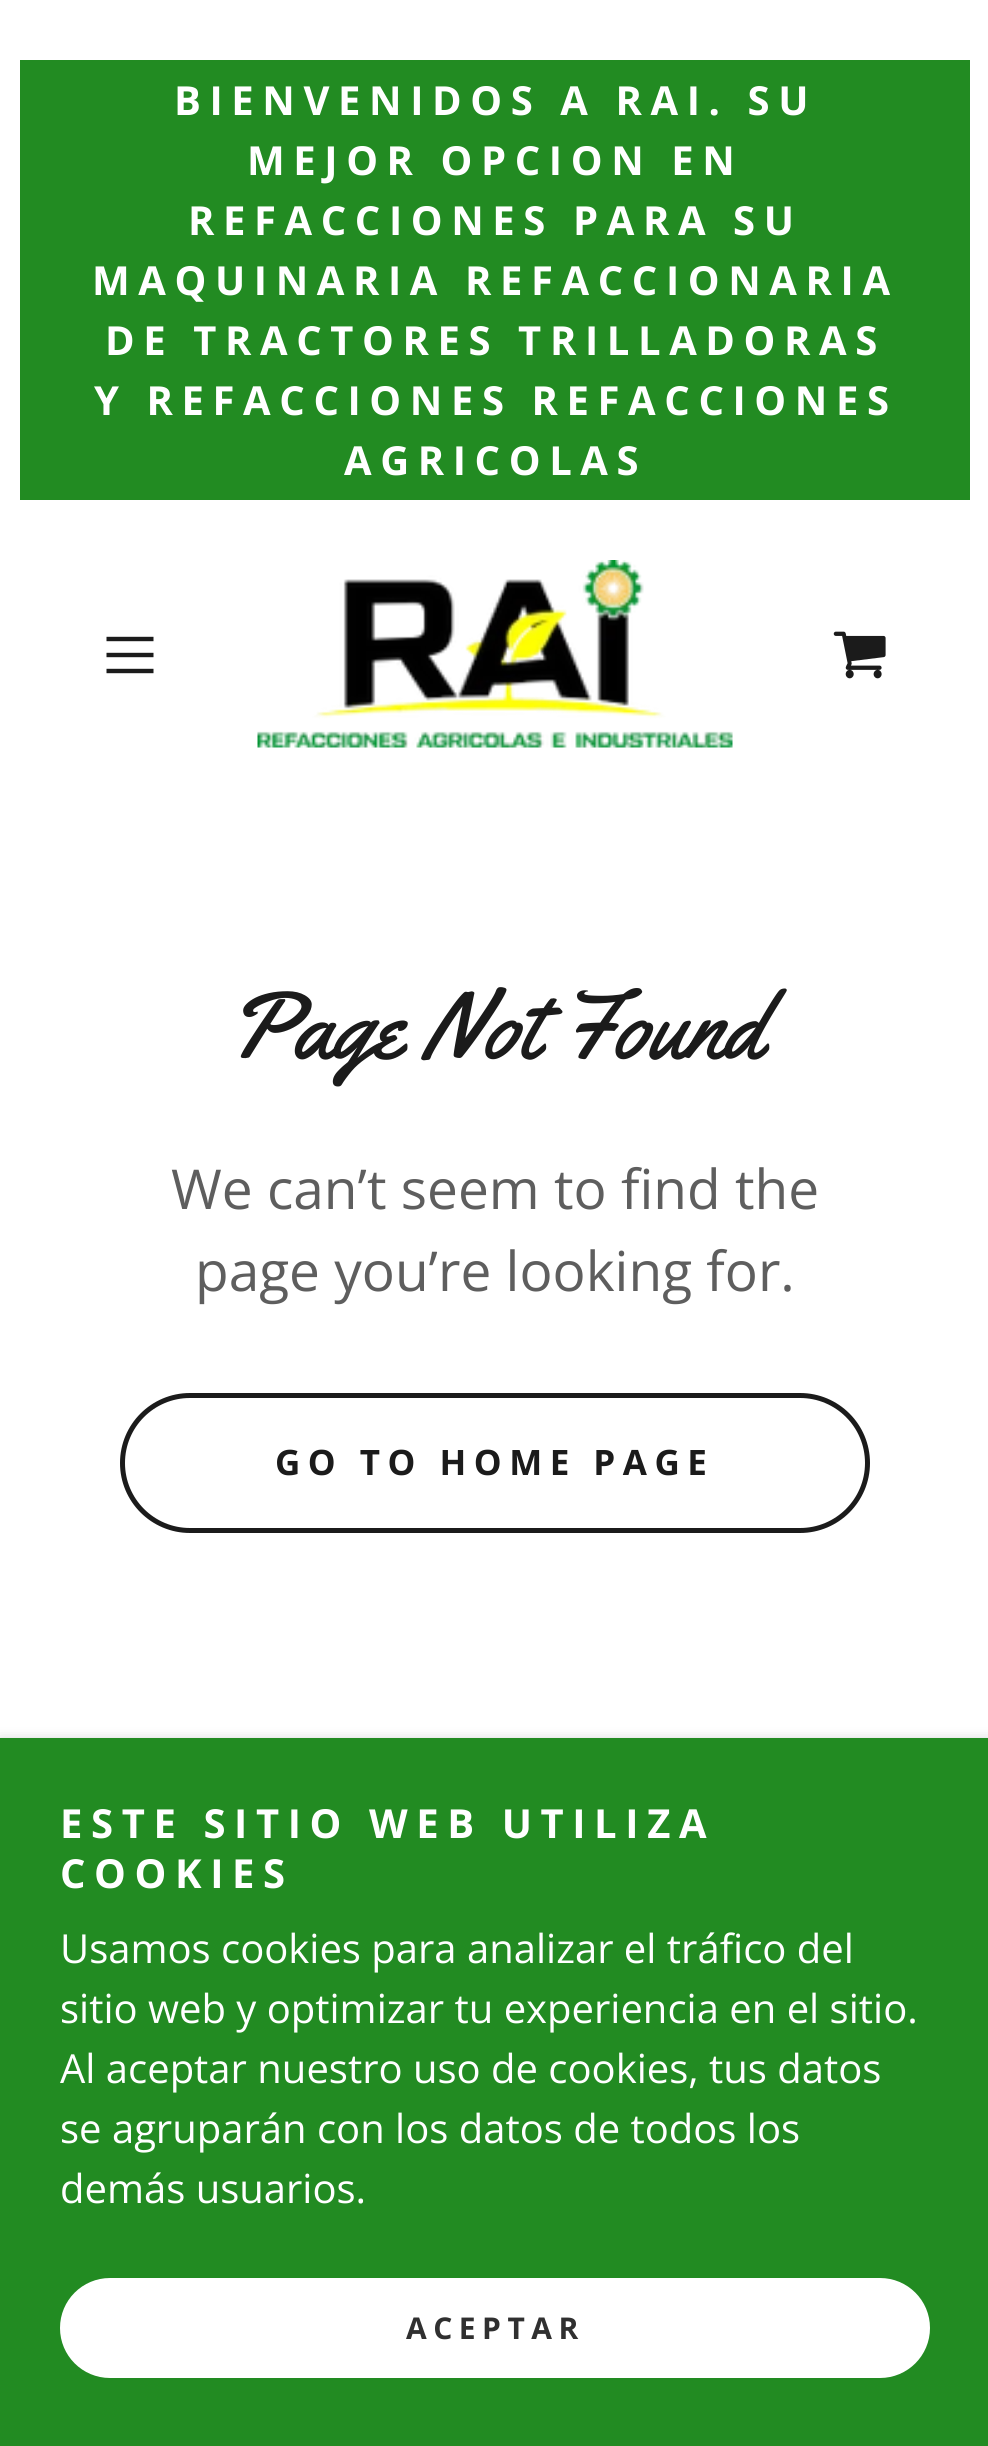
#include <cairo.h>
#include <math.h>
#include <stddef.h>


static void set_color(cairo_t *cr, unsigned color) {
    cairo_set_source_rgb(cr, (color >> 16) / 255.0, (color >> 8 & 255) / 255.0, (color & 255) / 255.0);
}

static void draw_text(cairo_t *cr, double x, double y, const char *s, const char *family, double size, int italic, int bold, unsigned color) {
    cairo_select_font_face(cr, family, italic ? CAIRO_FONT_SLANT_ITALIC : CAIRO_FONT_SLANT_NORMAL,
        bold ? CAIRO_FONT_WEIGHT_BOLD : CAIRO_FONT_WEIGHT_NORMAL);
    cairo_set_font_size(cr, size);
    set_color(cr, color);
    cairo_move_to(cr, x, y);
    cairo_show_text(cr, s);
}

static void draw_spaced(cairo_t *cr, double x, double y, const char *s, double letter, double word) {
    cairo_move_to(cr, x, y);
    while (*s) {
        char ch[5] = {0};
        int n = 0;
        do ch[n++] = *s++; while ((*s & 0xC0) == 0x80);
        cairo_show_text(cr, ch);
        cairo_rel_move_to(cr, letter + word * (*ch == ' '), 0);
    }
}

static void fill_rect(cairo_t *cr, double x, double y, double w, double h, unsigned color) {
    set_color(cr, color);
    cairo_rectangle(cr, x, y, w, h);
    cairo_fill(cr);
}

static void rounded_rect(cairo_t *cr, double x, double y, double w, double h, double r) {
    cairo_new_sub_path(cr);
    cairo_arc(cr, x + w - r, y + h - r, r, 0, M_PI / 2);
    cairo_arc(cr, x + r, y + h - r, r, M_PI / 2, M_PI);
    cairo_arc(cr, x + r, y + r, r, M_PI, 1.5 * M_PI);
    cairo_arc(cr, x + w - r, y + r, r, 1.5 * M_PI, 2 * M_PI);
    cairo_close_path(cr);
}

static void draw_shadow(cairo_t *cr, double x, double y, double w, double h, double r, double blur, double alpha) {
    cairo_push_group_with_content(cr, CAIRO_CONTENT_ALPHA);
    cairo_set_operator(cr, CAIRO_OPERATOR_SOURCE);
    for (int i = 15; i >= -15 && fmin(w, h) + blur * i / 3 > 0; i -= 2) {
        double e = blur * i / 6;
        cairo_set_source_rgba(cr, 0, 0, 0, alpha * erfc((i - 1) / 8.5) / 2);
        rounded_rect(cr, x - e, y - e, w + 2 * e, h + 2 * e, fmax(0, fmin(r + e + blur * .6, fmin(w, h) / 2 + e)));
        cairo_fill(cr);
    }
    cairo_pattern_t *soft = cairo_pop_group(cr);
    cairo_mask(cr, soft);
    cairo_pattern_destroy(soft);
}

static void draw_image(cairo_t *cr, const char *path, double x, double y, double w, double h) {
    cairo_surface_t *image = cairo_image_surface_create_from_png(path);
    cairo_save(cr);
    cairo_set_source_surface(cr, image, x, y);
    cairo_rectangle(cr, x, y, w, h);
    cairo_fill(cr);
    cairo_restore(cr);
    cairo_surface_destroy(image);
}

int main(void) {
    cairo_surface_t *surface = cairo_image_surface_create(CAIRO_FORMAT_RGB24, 988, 2446);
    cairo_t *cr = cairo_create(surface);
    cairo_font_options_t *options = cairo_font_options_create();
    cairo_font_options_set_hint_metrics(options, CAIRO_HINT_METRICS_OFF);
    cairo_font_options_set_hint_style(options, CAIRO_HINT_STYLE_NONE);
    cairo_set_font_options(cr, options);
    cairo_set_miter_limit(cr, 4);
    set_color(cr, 0xFFFFFF);
    cairo_paint(cr);
    fill_rect(cr, 20, 60, 950, 440, 0x228B22);
    cairo_select_font_face(cr, "Open Sans", CAIRO_FONT_SLANT_NORMAL, CAIRO_FONT_WEIGHT_BOLD);
    cairo_set_font_size(cr, 40);
    set_color(cr, 0xFFFFFF);
    draw_spaced(cr, 174, 115, "BIENVENIDOS A RAI. SU", 8.6, 0);
    draw_spaced(cr, 247, 175, "MEJOR OPCION EN", 8.6, 0);
    draw_spaced(cr, 188, 235, "REFACCIONES PARA SU", 8.6, 0);
    draw_spaced(cr, 92, 295, "MAQUINARIA REFACCIONARIA", 8.6, 0);
    draw_spaced(cr, 105, 355, "DE TRACTORES TRILLADORAS", 8.6, 0);
    draw_spaced(cr, 94, 415, "Y REFACCIONES REFACCIONES", 8.6, 0);
    draw_spaced(cr, 344, 475, "AGRICOLAS", 8.6, 0);
    cairo_new_path(cr);
    cairo_move_to(cr, 106.5, 639);
    cairo_line_to(cr, 153.5, 639);
    cairo_close_path(cr);
    cairo_move_to(cr, 106.5, 655);
    cairo_line_to(cr, 153.5, 655);
    cairo_close_path(cr);
    cairo_move_to(cr, 106.5, 671);
    cairo_line_to(cr, 153.5, 671);
    cairo_close_path(cr);
    set_color(cr, 0x1B1B1B);
    cairo_set_line_width(cr, 4.4);
    cairo_set_line_cap(cr, CAIRO_LINE_CAP_SQUARE);
    cairo_stroke(cr);
    draw_image(cr, "assets/img1.png", 257, 560, 476, 188);
    draw_image(cr, "assets/img2.png", 833, 631, 53, 48);
    draw_text(cr, 226, 1058, "Page Not Found", "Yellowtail", 95, 0, 0, 0x1B1B1B);
    draw_text(cr, 171, 1209, "We can’t seem to find the", "Open Sans", 55, 0, 0, 0x5E5E5E);
    draw_text(cr, 195, 1291, "page you’re looking for.", "Open Sans", 55, 0, 0, 0x5E5E5E);
    rounded_rect(cr, 122.5, 1395.5, 745, 135, 67.5);
    set_color(cr, 0x1B1B1B);
    cairo_set_line_width(cr, 5);
    cairo_set_line_cap(cr, CAIRO_LINE_CAP_BUTT);
    cairo_stroke(cr);
    cairo_select_font_face(cr, "Open Sans", CAIRO_FONT_SLANT_NORMAL, CAIRO_FONT_WEIGHT_BOLD);
    cairo_set_font_size(cr, 35);
    draw_spaced(cr, 275, 1475, "GO TO HOME PAGE", 7.5, 0);
    set_color(cr, 0x000000);
    draw_shadow(cr, 0, 1743, 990, 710, 0, 7.5, 0.3);
    fill_rect(cr, 0, 1738, 988, 708, 0x228B22);
    cairo_set_font_size(cr, 40);
    set_color(cr, 0xFFFFFF);
    draw_spaced(cr, 60, 1838, "ESTE SITIO WEB UTILIZA", 8.6, 0);
    draw_spaced(cr, 60, 1888, "COOKIES", 8.6, 0);
    draw_text(cr, 60, 1963, "Usamos cookies para analizar el tráfico del", "Open Sans", 40, 0, 0, 0xFFFFFF);
    draw_text(cr, 60, 2023, "sitio web y optimizar tu experiencia en el sitio.", "Open Sans", 40, 0, 0, 0xFFFFFF);
    draw_text(cr, 60, 2083, "Al aceptar nuestro uso de cookies, tus datos", "Open Sans", 40, 0, 0, 0xFFFFFF);
    draw_text(cr, 60, 2143, "se agruparán con los datos de todos los", "Open Sans", 40, 0, 0, 0xFFFFFF);
    draw_text(cr, 60, 2203, "demás usuarios.", "Open Sans", 40, 0, 0, 0xFFFFFF);
    rounded_rect(cr, 60, 2278, 870, 100, 50);
    cairo_fill(cr);
    cairo_select_font_face(cr, "Open Sans", CAIRO_FONT_SLANT_NORMAL, CAIRO_FONT_WEIGHT_BOLD);
    cairo_set_font_size(cr, 30);
    set_color(cr, 0x303030);
    draw_spaced(cr, 406, 2339, "ACEPTAR", 6.5, 0);
    cairo_surface_write_to_png(surface, "output.png");
    cairo_font_options_destroy(options);
    cairo_destroy(cr);
    cairo_surface_destroy(surface);
    return 0;
}
